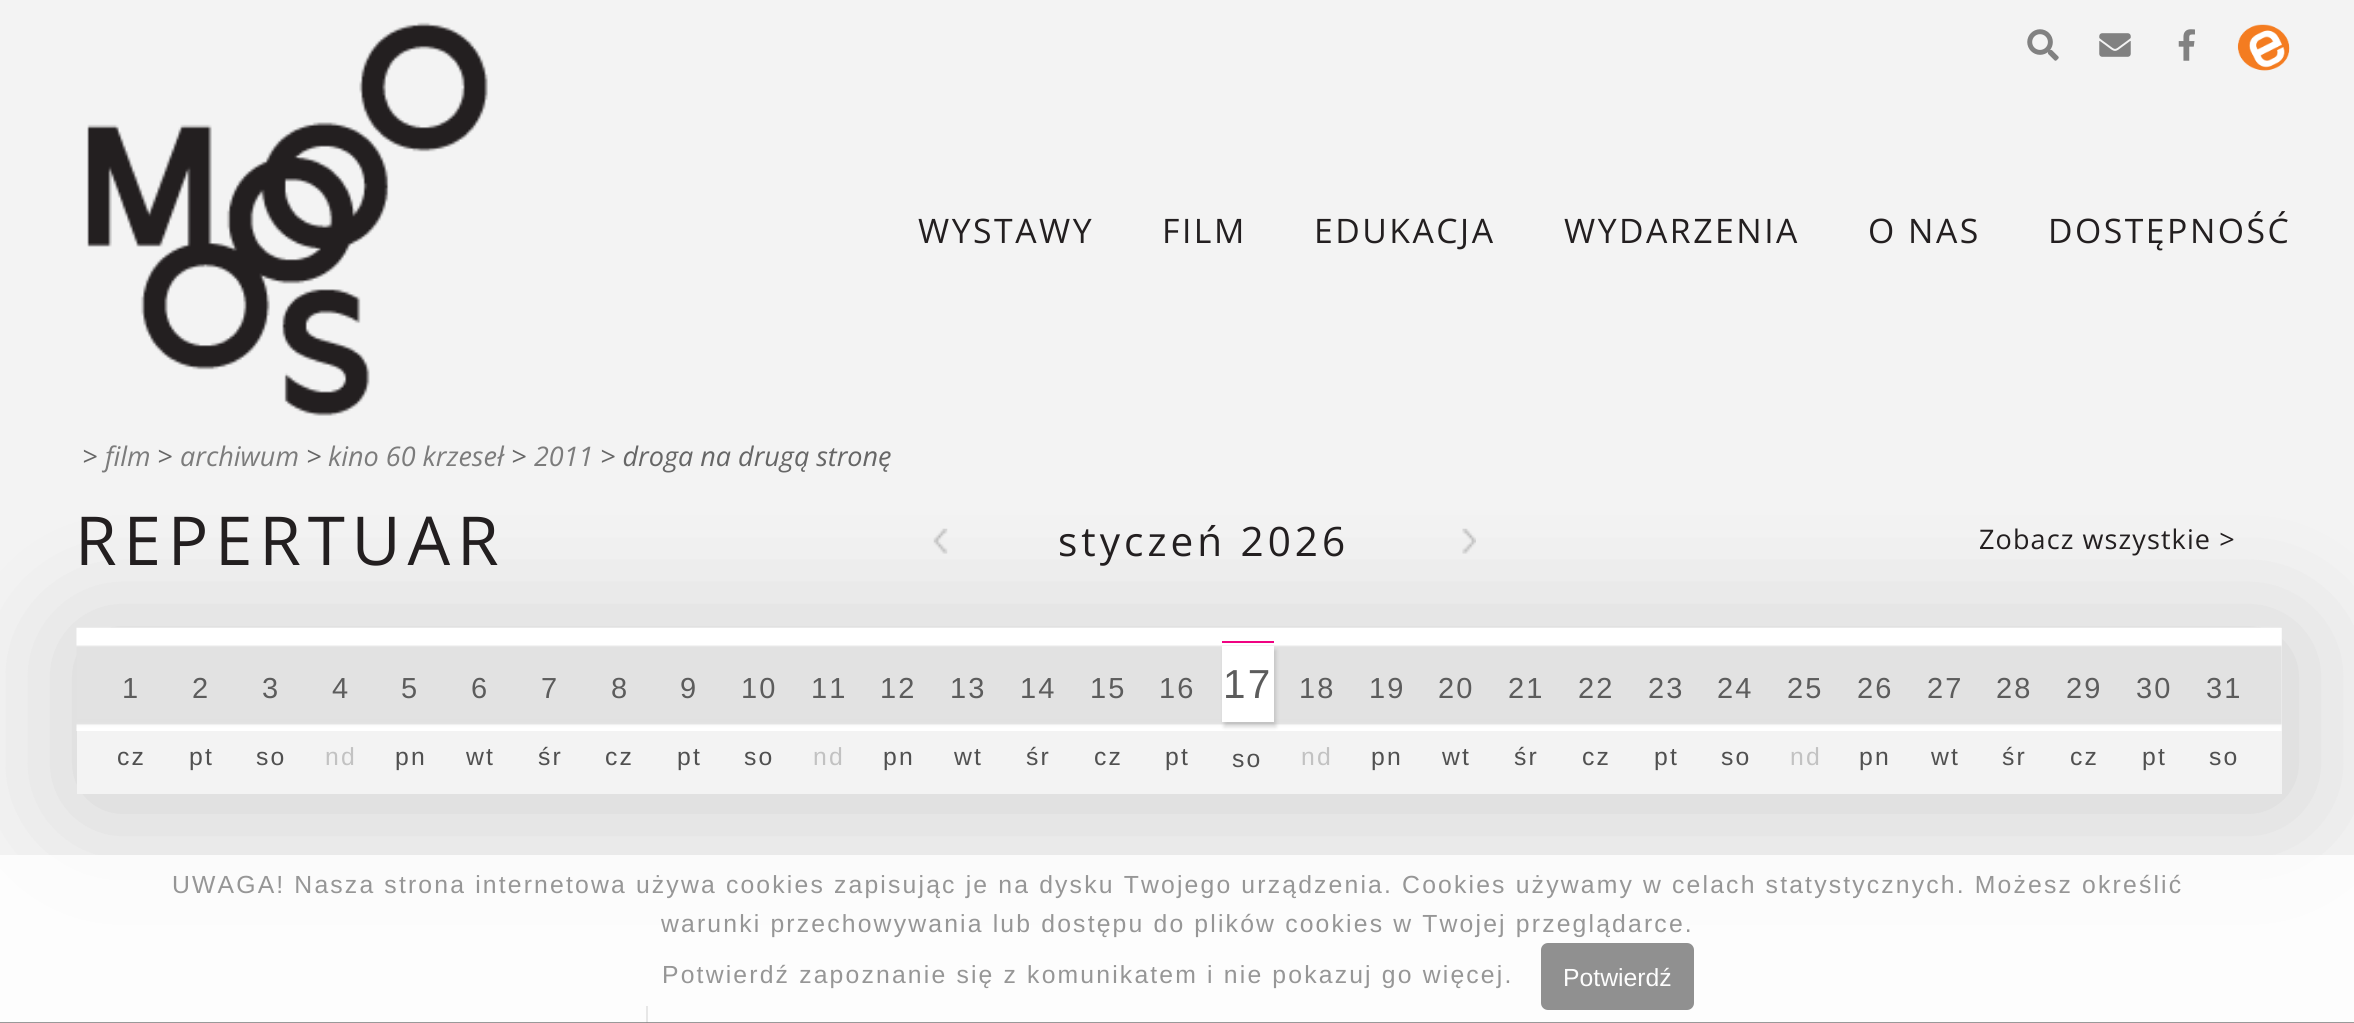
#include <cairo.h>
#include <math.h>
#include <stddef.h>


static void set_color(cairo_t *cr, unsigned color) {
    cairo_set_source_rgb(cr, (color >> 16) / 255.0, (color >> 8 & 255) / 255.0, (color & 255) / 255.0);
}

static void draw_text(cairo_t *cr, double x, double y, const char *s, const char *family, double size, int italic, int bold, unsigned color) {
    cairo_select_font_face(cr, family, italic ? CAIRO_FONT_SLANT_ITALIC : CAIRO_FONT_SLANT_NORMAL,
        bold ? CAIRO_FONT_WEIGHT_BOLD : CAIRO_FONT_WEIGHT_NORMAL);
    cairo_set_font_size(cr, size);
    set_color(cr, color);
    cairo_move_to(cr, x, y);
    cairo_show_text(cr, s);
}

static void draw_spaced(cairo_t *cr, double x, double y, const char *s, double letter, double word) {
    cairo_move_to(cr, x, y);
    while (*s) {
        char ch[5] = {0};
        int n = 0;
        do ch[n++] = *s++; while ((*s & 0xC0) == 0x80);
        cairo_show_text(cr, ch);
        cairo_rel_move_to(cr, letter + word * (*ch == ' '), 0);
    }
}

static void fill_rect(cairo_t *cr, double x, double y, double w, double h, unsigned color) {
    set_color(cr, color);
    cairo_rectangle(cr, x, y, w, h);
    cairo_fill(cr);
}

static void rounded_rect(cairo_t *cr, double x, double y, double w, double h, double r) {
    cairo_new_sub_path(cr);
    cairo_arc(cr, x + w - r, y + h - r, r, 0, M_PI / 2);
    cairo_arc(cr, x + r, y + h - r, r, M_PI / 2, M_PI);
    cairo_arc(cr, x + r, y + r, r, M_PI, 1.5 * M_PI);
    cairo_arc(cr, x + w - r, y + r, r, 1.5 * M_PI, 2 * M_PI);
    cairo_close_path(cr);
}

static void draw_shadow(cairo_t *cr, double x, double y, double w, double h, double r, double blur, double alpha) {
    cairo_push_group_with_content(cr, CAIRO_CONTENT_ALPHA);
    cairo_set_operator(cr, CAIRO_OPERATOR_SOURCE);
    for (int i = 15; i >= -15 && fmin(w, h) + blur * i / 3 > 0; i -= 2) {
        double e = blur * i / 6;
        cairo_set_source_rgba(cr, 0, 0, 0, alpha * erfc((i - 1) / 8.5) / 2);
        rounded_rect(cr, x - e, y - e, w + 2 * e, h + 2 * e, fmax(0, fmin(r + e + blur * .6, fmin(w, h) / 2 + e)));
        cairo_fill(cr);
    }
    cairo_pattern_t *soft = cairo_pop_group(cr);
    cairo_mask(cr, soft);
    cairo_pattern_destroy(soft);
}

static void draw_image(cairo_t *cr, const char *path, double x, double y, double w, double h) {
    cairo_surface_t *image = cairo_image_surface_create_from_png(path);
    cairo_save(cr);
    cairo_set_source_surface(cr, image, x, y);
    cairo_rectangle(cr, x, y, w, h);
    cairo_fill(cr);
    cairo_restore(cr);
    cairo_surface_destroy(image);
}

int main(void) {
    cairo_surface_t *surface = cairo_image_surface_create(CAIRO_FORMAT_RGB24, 2354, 1023);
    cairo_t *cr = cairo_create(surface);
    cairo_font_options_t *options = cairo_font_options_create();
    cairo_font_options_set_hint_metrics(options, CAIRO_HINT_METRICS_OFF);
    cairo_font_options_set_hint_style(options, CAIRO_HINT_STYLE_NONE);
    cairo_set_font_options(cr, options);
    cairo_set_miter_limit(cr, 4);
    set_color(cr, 0xF3F3F3);
    cairo_paint(cr);
    draw_image(cr, "assets/img1.png", 87, 22, 401, 394);
    draw_image(cr, "assets/img2.png", 2027, 29, 32, 32);
    draw_image(cr, "assets/img3.png", 2099, 33, 32, 24);
    draw_image(cr, "assets/img4.png", 2178, 29, 17, 32);
    draw_image(cr, "assets/img5.png", 2237, 24, 53, 47);
    cairo_select_font_face(cr, "Open Sans", CAIRO_FONT_SLANT_NORMAL, CAIRO_FONT_WEIGHT_NORMAL);
    cairo_set_font_size(cr, 33.75);
    set_color(cr, 0x231F20);
    draw_spaced(cr, 918, 243, "WYSTAWY", 2.5, 0);
    draw_spaced(cr, 1162, 243, "FILM", 2.5, 0);
    draw_spaced(cr, 1314, 243, "EDUKACJA", 2.5, 0);
    draw_spaced(cr, 1564, 243, "WYDARZENIA", 2.5, 0);
    draw_spaced(cr, 1868, 243, "O NAS", 2.5, 0);
    draw_spaced(cr, 2048, 243, "DOSTĘPNOŚĆ", 2.5, 0);
    draw_text(cr, 82, 466, ">", "Open Sans", 27, 1, 0, 0x666666);
    draw_text(cr, 105, 466, "film", "Open Sans", 27, 1, 0, 0x7C7C7C);
    draw_text(cr, 157, 466, ">", "Open Sans", 27, 1, 0, 0x666666);
    draw_text(cr, 180, 466, "archiwum", "Open Sans", 27, 1, 0, 0x7C7C7C);
    draw_text(cr, 306, 466, ">", "Open Sans", 27, 1, 0, 0x666666);
    draw_text(cr, 328, 466, "kino 60 krzeseł", "Open Sans", 27, 1, 0, 0x7C7C7C);
    draw_text(cr, 511, 466, ">", "Open Sans", 27, 1, 0, 0x666666);
    draw_text(cr, 534, 466, "2011", "Open Sans", 27, 1, 0, 0x7C7C7C);
    draw_text(cr, 600, 466, "> droga na drugą stronę", "Open Sans", 27, 1, 0, 0x666666);
    cairo_select_font_face(cr, "Open Sans", CAIRO_FONT_SLANT_NORMAL, CAIRO_FONT_WEIGHT_NORMAL);
    cairo_set_font_size(cr, 67.5);
    set_color(cr, 0x231F20);
    draw_spaced(cr, 75, 565, "REPERTUAR", 6.75, 0);
    cairo_set_font_size(cr, 40.5);
    draw_spaced(cr, 1058, 556, "styczeń 2026", 4, 0);
    cairo_save(cr);
    cairo_set_fill_rule(cr, CAIRO_FILL_RULE_EVEN_ODD);
    cairo_new_path(cr);
    cairo_move_to(cr, 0, 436);
    cairo_line_to(cr, 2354, 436);
    cairo_line_to(cr, 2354, 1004);
    cairo_line_to(cr, 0, 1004);
    cairo_close_path(cr);
    cairo_move_to(cr, 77, 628);
    cairo_line_to(cr, 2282, 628);
    cairo_line_to(cr, 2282, 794);
    cairo_line_to(cr, 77, 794);
    cairo_close_path(cr);
    cairo_clip(cr);
    set_color(cr, 0x000000);
    draw_shadow(cr, 83, 637, 2205, 166, 0, 66.5, 0.15);
    cairo_restore(cr);
    draw_image(cr, "assets/img6.png", 76, 627, 2206, 104);
    cairo_select_font_face(cr, "Liberation Sans", CAIRO_FONT_SLANT_NORMAL, CAIRO_FONT_WEIGHT_NORMAL);
    cairo_set_font_size(cr, 29);
    set_color(cr, 0x5C5C5C);
    draw_spaced(cr, 122, 698, "1", 2.16, 0);
    cairo_set_font_size(cr, 24.75);
    set_color(cr, 0x505050);
    draw_spaced(cr, 117, 765, "cz", 2.16, 0);
    cairo_set_font_size(cr, 29);
    set_color(cr, 0x5C5C5C);
    draw_spaced(cr, 192, 698, "2", 2.16, 0);
    cairo_set_font_size(cr, 24.75);
    set_color(cr, 0x505050);
    draw_spaced(cr, 189, 765, "pt", 2.16, 0);
    cairo_set_font_size(cr, 29);
    set_color(cr, 0x5C5C5C);
    draw_spaced(cr, 262, 698, "3", 2.16, 0);
    cairo_set_font_size(cr, 24.75);
    set_color(cr, 0x505050);
    draw_spaced(cr, 256, 765, "so", 2.16, 0);
    cairo_set_font_size(cr, 29);
    set_color(cr, 0x5C5C5C);
    draw_spaced(cr, 332, 698, "4", 2.16, 0);
    cairo_set_font_size(cr, 24.75);
    set_color(cr, 0xC2C2C2);
    draw_spaced(cr, 325, 765, "nd", 2.16, 0);
    cairo_set_font_size(cr, 29);
    set_color(cr, 0x5C5C5C);
    draw_spaced(cr, 401, 698, "5", 2.16, 0);
    cairo_set_font_size(cr, 24.75);
    set_color(cr, 0x505050);
    draw_spaced(cr, 395, 765, "pn", 2.16, 0);
    cairo_set_font_size(cr, 29);
    set_color(cr, 0x5C5C5C);
    draw_spaced(cr, 471, 698, "6", 2.16, 0);
    cairo_set_font_size(cr, 24.75);
    set_color(cr, 0x505050);
    draw_spaced(cr, 466, 765, "wt", 2.16, 0);
    cairo_set_font_size(cr, 29);
    set_color(cr, 0x5C5C5C);
    draw_spaced(cr, 541, 698, "7", 2.16, 0);
    cairo_set_font_size(cr, 24.75);
    set_color(cr, 0x505050);
    draw_spaced(cr, 538, 765, "śr", 2.16, 0);
    cairo_set_font_size(cr, 29);
    set_color(cr, 0x5C5C5C);
    draw_spaced(cr, 611, 698, "8", 2.16, 0);
    cairo_set_font_size(cr, 24.75);
    set_color(cr, 0x505050);
    draw_spaced(cr, 605, 765, "cz", 2.16, 0);
    cairo_set_font_size(cr, 29);
    set_color(cr, 0x5C5C5C);
    draw_spaced(cr, 680, 698, "9", 2.16, 0);
    cairo_set_font_size(cr, 24.75);
    set_color(cr, 0x505050);
    draw_spaced(cr, 677, 765, "pt", 2.16, 0);
    cairo_set_font_size(cr, 29);
    set_color(cr, 0x5C5C5C);
    draw_spaced(cr, 741, 698, "10", 2.16, 0);
    cairo_set_font_size(cr, 24.75);
    set_color(cr, 0x505050);
    draw_spaced(cr, 744, 765, "so", 2.16, 0);
    cairo_set_font_size(cr, 29);
    set_color(cr, 0x5C5C5C);
    draw_spaced(cr, 811, 698, "11", 2.16, 0);
    cairo_set_font_size(cr, 24.75);
    set_color(cr, 0xC2C2C2);
    draw_spaced(cr, 813, 765, "nd", 2.16, 0);
    cairo_set_font_size(cr, 29);
    set_color(cr, 0x5C5C5C);
    draw_spaced(cr, 880, 698, "12", 2.16, 0);
    cairo_set_font_size(cr, 24.75);
    set_color(cr, 0x505050);
    draw_spaced(cr, 883, 765, "pn", 2.16, 0);
    cairo_set_font_size(cr, 29);
    set_color(cr, 0x5C5C5C);
    draw_spaced(cr, 950, 698, "13", 2.16, 0);
    cairo_set_font_size(cr, 24.75);
    set_color(cr, 0x505050);
    draw_spaced(cr, 954, 765, "wt", 2.16, 0);
    cairo_set_font_size(cr, 29);
    set_color(cr, 0x5C5C5C);
    draw_spaced(cr, 1020, 698, "14", 2.16, 0);
    cairo_set_font_size(cr, 24.75);
    set_color(cr, 0x505050);
    draw_spaced(cr, 1026, 765, "śr", 2.16, 0);
    cairo_set_font_size(cr, 29);
    set_color(cr, 0x5C5C5C);
    draw_spaced(cr, 1090, 698, "15", 2.16, 0);
    cairo_set_font_size(cr, 24.75);
    set_color(cr, 0x505050);
    draw_spaced(cr, 1094, 765, "cz", 2.16, 0);
    cairo_set_font_size(cr, 29);
    set_color(cr, 0x5C5C5C);
    draw_spaced(cr, 1159, 698, "16", 2.16, 0);
    cairo_set_font_size(cr, 24.75);
    set_color(cr, 0x505050);
    draw_spaced(cr, 1165, 765, "pt", 2.16, 0);
    set_color(cr, 0x000000);
    draw_shadow(cr, 1224, 650, 52, 77, 0, 2, 0.14);
    fill_rect(cr, 1222, 646, 52, 76, 0xFFFFFF);
    fill_rect(cr, 1222, 641, 52, 2, 0xF00382);
    cairo_set_font_size(cr, 40.5);
    set_color(cr, 0x5C5C5C);
    draw_spaced(cr, 1223, 698, "17", 2.16, 0);
    cairo_set_font_size(cr, 24.75);
    set_color(cr, 0x505050);
    draw_spaced(cr, 1232, 767, "so", 2.16, 0);
    cairo_set_font_size(cr, 29);
    set_color(cr, 0x5C5C5C);
    draw_spaced(cr, 1299, 698, "18", 2.16, 0);
    cairo_set_font_size(cr, 24.75);
    set_color(cr, 0xC2C2C2);
    draw_spaced(cr, 1301, 765, "nd", 2.16, 0);
    cairo_set_font_size(cr, 29);
    set_color(cr, 0x5C5C5C);
    draw_spaced(cr, 1369, 698, "19", 2.16, 0);
    cairo_set_font_size(cr, 24.75);
    set_color(cr, 0x505050);
    draw_spaced(cr, 1371, 765, "pn", 2.16, 0);
    cairo_set_font_size(cr, 29);
    set_color(cr, 0x5C5C5C);
    draw_spaced(cr, 1438, 698, "20", 2.16, 0);
    cairo_set_font_size(cr, 24.75);
    set_color(cr, 0x505050);
    draw_spaced(cr, 1442, 765, "wt", 2.16, 0);
    cairo_set_font_size(cr, 29);
    set_color(cr, 0x5C5C5C);
    draw_spaced(cr, 1508, 698, "21", 2.16, 0);
    cairo_set_font_size(cr, 24.75);
    set_color(cr, 0x505050);
    draw_spaced(cr, 1514, 765, "śr", 2.16, 0);
    cairo_set_font_size(cr, 29);
    set_color(cr, 0x5C5C5C);
    draw_spaced(cr, 1578, 698, "22", 2.16, 0);
    cairo_set_font_size(cr, 24.75);
    set_color(cr, 0x505050);
    draw_spaced(cr, 1582, 765, "cz", 2.16, 0);
    cairo_set_font_size(cr, 29);
    set_color(cr, 0x5C5C5C);
    draw_spaced(cr, 1648, 698, "23", 2.16, 0);
    cairo_set_font_size(cr, 24.75);
    set_color(cr, 0x505050);
    draw_spaced(cr, 1654, 765, "pt", 2.16, 0);
    cairo_set_font_size(cr, 29);
    set_color(cr, 0x5C5C5C);
    draw_spaced(cr, 1717, 698, "24", 2.16, 0);
    cairo_set_font_size(cr, 24.75);
    set_color(cr, 0x505050);
    draw_spaced(cr, 1721, 765, "so", 2.16, 0);
    cairo_set_font_size(cr, 29);
    set_color(cr, 0x5C5C5C);
    draw_spaced(cr, 1787, 698, "25", 2.16, 0);
    cairo_set_font_size(cr, 24.75);
    set_color(cr, 0xC2C2C2);
    draw_spaced(cr, 1790, 765, "nd", 2.16, 0);
    cairo_set_font_size(cr, 29);
    set_color(cr, 0x5C5C5C);
    draw_spaced(cr, 1857, 698, "26", 2.16, 0);
    cairo_set_font_size(cr, 24.75);
    set_color(cr, 0x505050);
    draw_spaced(cr, 1859, 765, "pn", 2.16, 0);
    cairo_set_font_size(cr, 29);
    set_color(cr, 0x5C5C5C);
    draw_spaced(cr, 1927, 698, "27", 2.16, 0);
    cairo_set_font_size(cr, 24.75);
    set_color(cr, 0x505050);
    draw_spaced(cr, 1931, 765, "wt", 2.16, 0);
    cairo_set_font_size(cr, 29);
    set_color(cr, 0x5C5C5C);
    draw_spaced(cr, 1996, 698, "28", 2.16, 0);
    cairo_set_font_size(cr, 24.75);
    set_color(cr, 0x505050);
    draw_spaced(cr, 2002, 765, "śr", 2.16, 0);
    cairo_set_font_size(cr, 29);
    set_color(cr, 0x5C5C5C);
    draw_spaced(cr, 2066, 698, "29", 2.16, 0);
    cairo_set_font_size(cr, 24.75);
    set_color(cr, 0x505050);
    draw_spaced(cr, 2070, 765, "cz", 2.16, 0);
    cairo_set_font_size(cr, 29);
    set_color(cr, 0x5C5C5C);
    draw_spaced(cr, 2136, 698, "30", 2.16, 0);
    cairo_set_font_size(cr, 24.75);
    set_color(cr, 0x505050);
    draw_spaced(cr, 2142, 765, "pt", 2.16, 0);
    cairo_set_font_size(cr, 29);
    set_color(cr, 0x5C5C5C);
    draw_spaced(cr, 2206, 698, "31", 2.16, 0);
    cairo_set_font_size(cr, 24.75);
    set_color(cr, 0x505050);
    draw_spaced(cr, 2209, 765, "so", 2.16, 0);
    draw_image(cr, "assets/img7.png", 933, 528, 15, 26);
    draw_image(cr, "assets/img8.png", 1462, 528, 14, 26);
    cairo_select_font_face(cr, "Open Sans", CAIRO_FONT_SLANT_NORMAL, CAIRO_FONT_WEIGHT_NORMAL);
    cairo_set_font_size(cr, 27);
    set_color(cr, 0x231F20);
    draw_spaced(cr, 1979, 549, "Zobacz wszystkie >", 1.1, 0);
    fill_rect(cr, 646, 1006, 2, 17, 0x858585);
    cairo_set_source_rgba(cr, 1, 1, 1, 0.8);
    cairo_rectangle(cr, 0, 855, 2354, 168);
    cairo_fill(cr);
    cairo_set_source_rgba(cr, 0.502, 0.502, 0.502, 0.8);
    cairo_rectangle(cr, 0, 1022, 2354, 1);
    cairo_fill(cr);
    cairo_select_font_face(cr, "Liberation Sans", CAIRO_FONT_SLANT_NORMAL, CAIRO_FONT_WEIGHT_NORMAL);
    cairo_set_font_size(cr, 24.75);
    set_color(cr, 0x969696);
    draw_spaced(cr, 172, 893, "UWAGA! Nasza strona internetowa używa cookies zapisując je na dysku Twojego urządzenia. Cookies używamy w celach statystycznych. Możesz określić", 2.16, 0);
    draw_spaced(cr, 661, 932, "warunki przechowywania lub dostępu do plików cookies w Twojej przeglądarce.", 2.16, 0);
    draw_spaced(cr, 662, 983, "Potwierdź zapoznanie się z komunikatem i nie pokazuj go więcej.", 2.16, 0);
    set_color(cr, 0x909090);
    rounded_rect(cr, 1541, 943, 153, 67, 7);
    cairo_fill(cr);
    draw_text(cr, 1563, 986, "Potwierdź", "Liberation Sans", 24.75, 0, 0, 0xFDFDFD);
    cairo_surface_write_to_png(surface, "output.png");
    cairo_font_options_destroy(options);
    cairo_destroy(cr);
    cairo_surface_destroy(surface);
    return 0;
}
